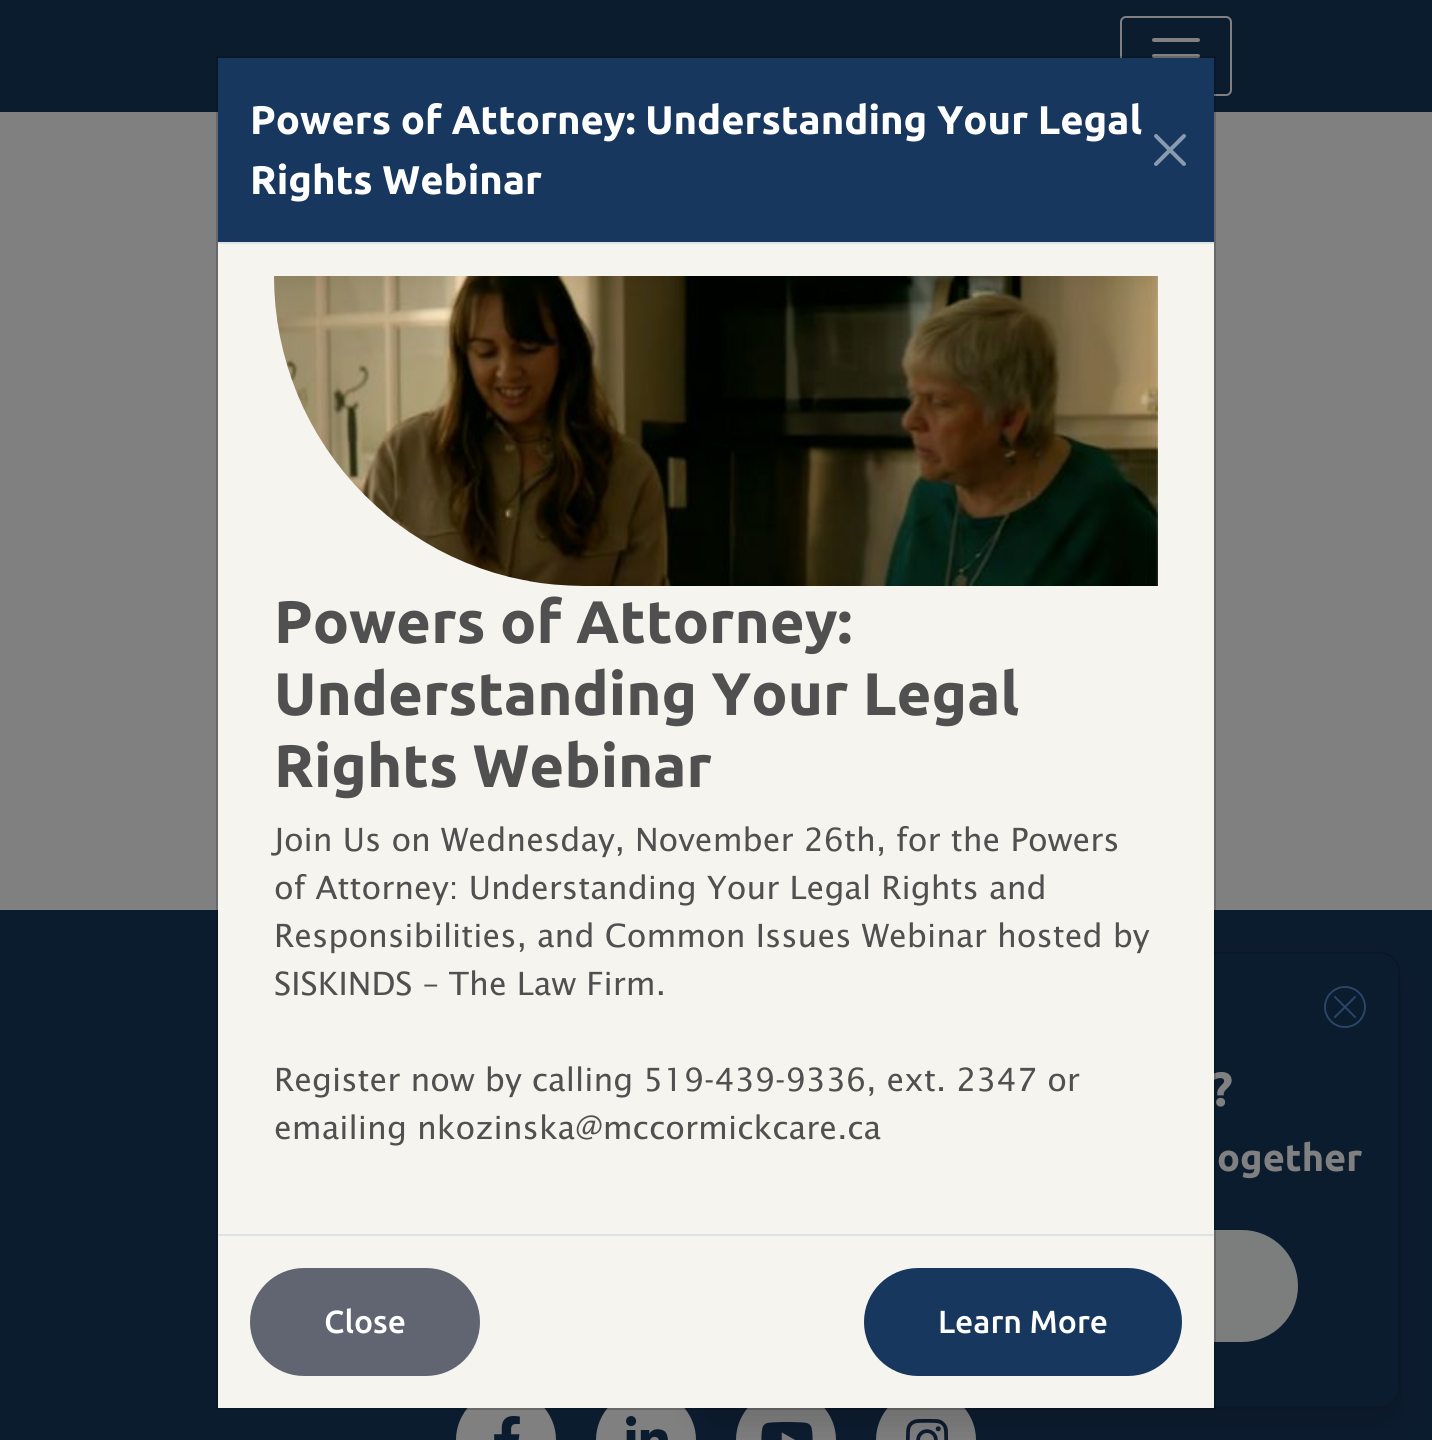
#include <cairo.h>
#include <math.h>
#include <stddef.h>


static void set_color(cairo_t *cr, unsigned color) {
    cairo_set_source_rgb(cr, (color >> 16) / 255.0, (color >> 8 & 255) / 255.0, (color & 255) / 255.0);
}

static void draw_text(cairo_t *cr, double x, double y, const char *s, const char *family, double size, int italic, int bold, unsigned color) {
    cairo_select_font_face(cr, family, italic ? CAIRO_FONT_SLANT_ITALIC : CAIRO_FONT_SLANT_NORMAL,
        bold ? CAIRO_FONT_WEIGHT_BOLD : CAIRO_FONT_WEIGHT_NORMAL);
    cairo_set_font_size(cr, size);
    set_color(cr, color);
    cairo_move_to(cr, x, y);
    cairo_show_text(cr, s);
}

static void fill_rect(cairo_t *cr, double x, double y, double w, double h, unsigned color) {
    set_color(cr, color);
    cairo_rectangle(cr, x, y, w, h);
    cairo_fill(cr);
}

static void rounded_rect(cairo_t *cr, double x, double y, double w, double h, double r) {
    cairo_new_sub_path(cr);
    cairo_arc(cr, x + w - r, y + h - r, r, 0, M_PI / 2);
    cairo_arc(cr, x + r, y + h - r, r, M_PI / 2, M_PI);
    cairo_arc(cr, x + r, y + r, r, M_PI, 1.5 * M_PI);
    cairo_arc(cr, x + w - r, y + r, r, 1.5 * M_PI, 2 * M_PI);
    cairo_close_path(cr);
}

static void draw_shadow(cairo_t *cr, double x, double y, double w, double h, double r, double blur, double alpha) {
    cairo_push_group_with_content(cr, CAIRO_CONTENT_ALPHA);
    cairo_set_operator(cr, CAIRO_OPERATOR_SOURCE);
    for (int i = 15; i >= -15 && fmin(w, h) + blur * i / 3 > 0; i -= 2) {
        double e = blur * i / 6;
        cairo_set_source_rgba(cr, 0, 0, 0, alpha * erfc((i - 1) / 8.5) / 2);
        rounded_rect(cr, x - e, y - e, w + 2 * e, h + 2 * e, fmax(0, fmin(r + e + blur * .6, fmin(w, h) / 2 + e)));
        cairo_fill(cr);
    }
    cairo_pattern_t *soft = cairo_pop_group(cr);
    cairo_mask(cr, soft);
    cairo_pattern_destroy(soft);
}

static void draw_image(cairo_t *cr, const char *path, double x, double y, double w, double h) {
    cairo_surface_t *image = cairo_image_surface_create_from_png(path);
    cairo_save(cr);
    cairo_set_source_surface(cr, image, x, y);
    cairo_rectangle(cr, x, y, w, h);
    cairo_fill(cr);
    cairo_restore(cr);
    cairo_surface_destroy(image);
}

int main(void) {
    cairo_surface_t *surface = cairo_image_surface_create(CAIRO_FORMAT_RGB24, 1432, 1440);
    cairo_t *cr = cairo_create(surface);
    cairo_font_options_t *options = cairo_font_options_create();
    cairo_font_options_set_hint_metrics(options, CAIRO_HINT_METRICS_OFF);
    cairo_font_options_set_hint_style(options, CAIRO_HINT_STYLE_NONE);
    cairo_set_font_options(cr, options);
    cairo_set_miter_limit(cr, 4);
    set_color(cr, 0x808080);
    cairo_paint(cr);
    fill_rect(cr, 0, 0, 1432, 112, 0x0C1C2F);
    rounded_rect(cr, 1121, 17, 110, 78, 5);
    set_color(cr, 0x808080);
    cairo_stroke(cr);
    cairo_new_path(cr);
    cairo_move_to(cr, 1154, 40);
    cairo_line_to(cr, 1198, 40);
    cairo_move_to(cr, 1154, 56);
    cairo_line_to(cr, 1198, 56);
    cairo_move_to(cr, 1154, 72);
    cairo_line_to(cr, 1198, 72);
    cairo_set_line_width(cr, 4);
    cairo_set_line_cap(cr, CAIRO_LINE_CAP_ROUND);
    cairo_stroke(cr);
    fill_rect(cr, 0, 910, 1432, 530, 0x0C1C2F);
    set_color(cr, 0x808080);
    cairo_arc(cr, 506, 1440, 50, 0, 2 * M_PI);
    cairo_fill(cr);
    cairo_arc(cr, 646, 1440, 50, 0, 2 * M_PI);
    cairo_fill(cr);
    cairo_arc(cr, 786, 1440, 50, 0, 2 * M_PI);
    cairo_fill(cr);
    cairo_arc(cr, 926, 1440, 50, 0, 2 * M_PI);
    cairo_fill(cr);
    draw_image(cr, "assets/img4.png", 626, 1416, 42, 24);
    draw_image(cr, "assets/img5.png", 761, 1422, 52, 18);
    draw_image(cr, "assets/img6.png", 906, 1419, 42, 21);
    cairo_save(cr);
    cairo_set_fill_rule(cr, CAIRO_FILL_RULE_EVEN_ODD);
    cairo_new_path(cr);
    cairo_move_to(cr, 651, 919);
    cairo_line_to(cr, 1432, 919);
    cairo_line_to(cr, 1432, 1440);
    cairo_line_to(cr, 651, 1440);
    cairo_close_path(cr);
    cairo_move_to(cr, 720, 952);
    cairo_line_to(cr, 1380, 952);
    cairo_curve_to(cr, 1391, 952, 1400, 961, 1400, 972);
    cairo_line_to(cr, 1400, 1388);
    cairo_curve_to(cr, 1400, 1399, 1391, 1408, 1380, 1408);
    cairo_line_to(cr, 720, 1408);
    cairo_curve_to(cr, 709, 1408, 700, 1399, 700, 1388);
    cairo_line_to(cr, 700, 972);
    cairo_curve_to(cr, 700, 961, 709, 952, 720, 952);
    cairo_close_path(cr);
    cairo_clip(cr);
    set_color(cr, 0x000000);
    draw_shadow(cr, 700, 968, 700, 456, 20, 16, 0.15);
    cairo_restore(cr);
    set_color(cr, 0x0C1C2F);
    rounded_rect(cr, 702, 954, 696, 452, 18);
    cairo_fill(cr);
    rounded_rect(cr, 701, 953, 698, 454, 19);
    cairo_set_source_rgba(cr, 0, 0, 0, 0.18);
    cairo_set_line_width(cr, 2);
    cairo_set_line_cap(cr, CAIRO_LINE_CAP_BUTT);
    cairo_stroke(cr);
    draw_text(cr, 1211, 1106, "?", "Ubuntu", 48, 0, 1, 0x808080);
    set_color(cr, 0x7C7D7D);
    rounded_rect(cr, 803, 1231, 494, 110, 55);
    cairo_fill_preserve(cr);
    cairo_stroke(cr);
    fill_rect(cr, 218, 244, 996, 1164, 0xF5F4EE);
    cairo_rectangle(cr, 217, 57, 998, 1352);
    cairo_set_source_rgba(cr, 0, 0, 0, 0.18);
    cairo_stroke(cr);
    fill_rect(cr, 218, 58, 996, 184, 0x17375E);
    fill_rect(cr, 218, 242, 996, 2, 0xDEE2E6);
    draw_text(cr, 250, 134, "Powers of Attorney: Understanding Your Legal", "Ubuntu", 40, 0, 1, 0xFFFFFF);
    draw_text(cr, 250, 194, "Rights Webinar", "Ubuntu", 40, 0, 1, 0xFFFFFF);
    draw_image(cr, "assets/img1.png", 1154, 134, 32, 32);
    draw_image(cr, "assets/img2.png", 274, 276, 884, 310);
    draw_text(cr, 274, 643, "Powers of Attorney:", "Ubuntu", 60, 0, 1, 0x505050);
    draw_text(cr, 274, 715, "Understanding Your Legal", "Ubuntu", 60, 0, 1, 0x505050);
    draw_text(cr, 274, 787, "Rights Webinar", "Ubuntu", 60, 0, 1, 0x505050);
    draw_text(cr, 274, 851, "Join Us on Wednesday, November 26th, for the Powers", "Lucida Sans", 32, 0, 0, 0x505050);
    draw_text(cr, 274, 899, "of Attorney: Understanding Your Legal Rights and", "Lucida Sans", 32, 0, 0, 0x505050);
    draw_text(cr, 274, 947, "Responsibilities, and Common Issues Webinar hosted by", "Lucida Sans", 32, 0, 0, 0x505050);
    draw_text(cr, 274, 995, "SISKINDS – The Law Firm.", "Lucida Sans", 32, 0, 0, 0x505050);
    draw_text(cr, 274, 1091, "Register now by calling 519-439-9336, ext. 2347 or", "Lucida Sans", 32, 0, 0, 0x505050);
    draw_text(cr, 274, 1139, "emailing nkozinska@mccormickcare.ca", "Lucida Sans", 32, 0, 0, 0x505050);
    fill_rect(cr, 218, 1234, 996, 2, 0xDEE2E6);
    set_color(cr, 0x616572);
    rounded_rect(cr, 251, 1269, 228, 106, 53);
    cairo_fill_preserve(cr);
    cairo_stroke(cr);
    draw_text(cr, 324, 1333, "Close", "Ubuntu Medium", 32, 0, 0, 0xFFFFFF);
    set_color(cr, 0x17375E);
    rounded_rect(cr, 865, 1269, 316, 106, 53);
    cairo_fill_preserve(cr);
    cairo_stroke(cr);
    draw_text(cr, 938, 1333, "Learn More", "Ubuntu Medium", 32, 0, 0, 0xFFFFFF);
    draw_image(cr, "assets/img3.png", 494, 1416, 26, 24);
    cairo_new_path(cr);
    cairo_move_to(cr, 1335, 997);
    cairo_line_to(cr, 1355, 1017);
    cairo_move_to(cr, 1355, 997);
    cairo_line_to(cr, 1335, 1017);
    set_color(cr, 0x2B486B);
    cairo_set_line_width(cr, 1.8);
    cairo_set_line_cap(cr, CAIRO_LINE_CAP_SQUARE);
    cairo_stroke(cr);
    cairo_arc(cr, 1345, 1007, 20, 0, 2 * M_PI);
    cairo_set_line_cap(cr, CAIRO_LINE_CAP_BUTT);
    cairo_stroke(cr);
    draw_text(cr, 1217, 1171, "ogether", "Ubuntu", 38, 0, 1, 0x808080);
    cairo_surface_write_to_png(surface, "output.png");
    cairo_font_options_destroy(options);
    cairo_destroy(cr);
    cairo_surface_destroy(surface);
    return 0;
}
